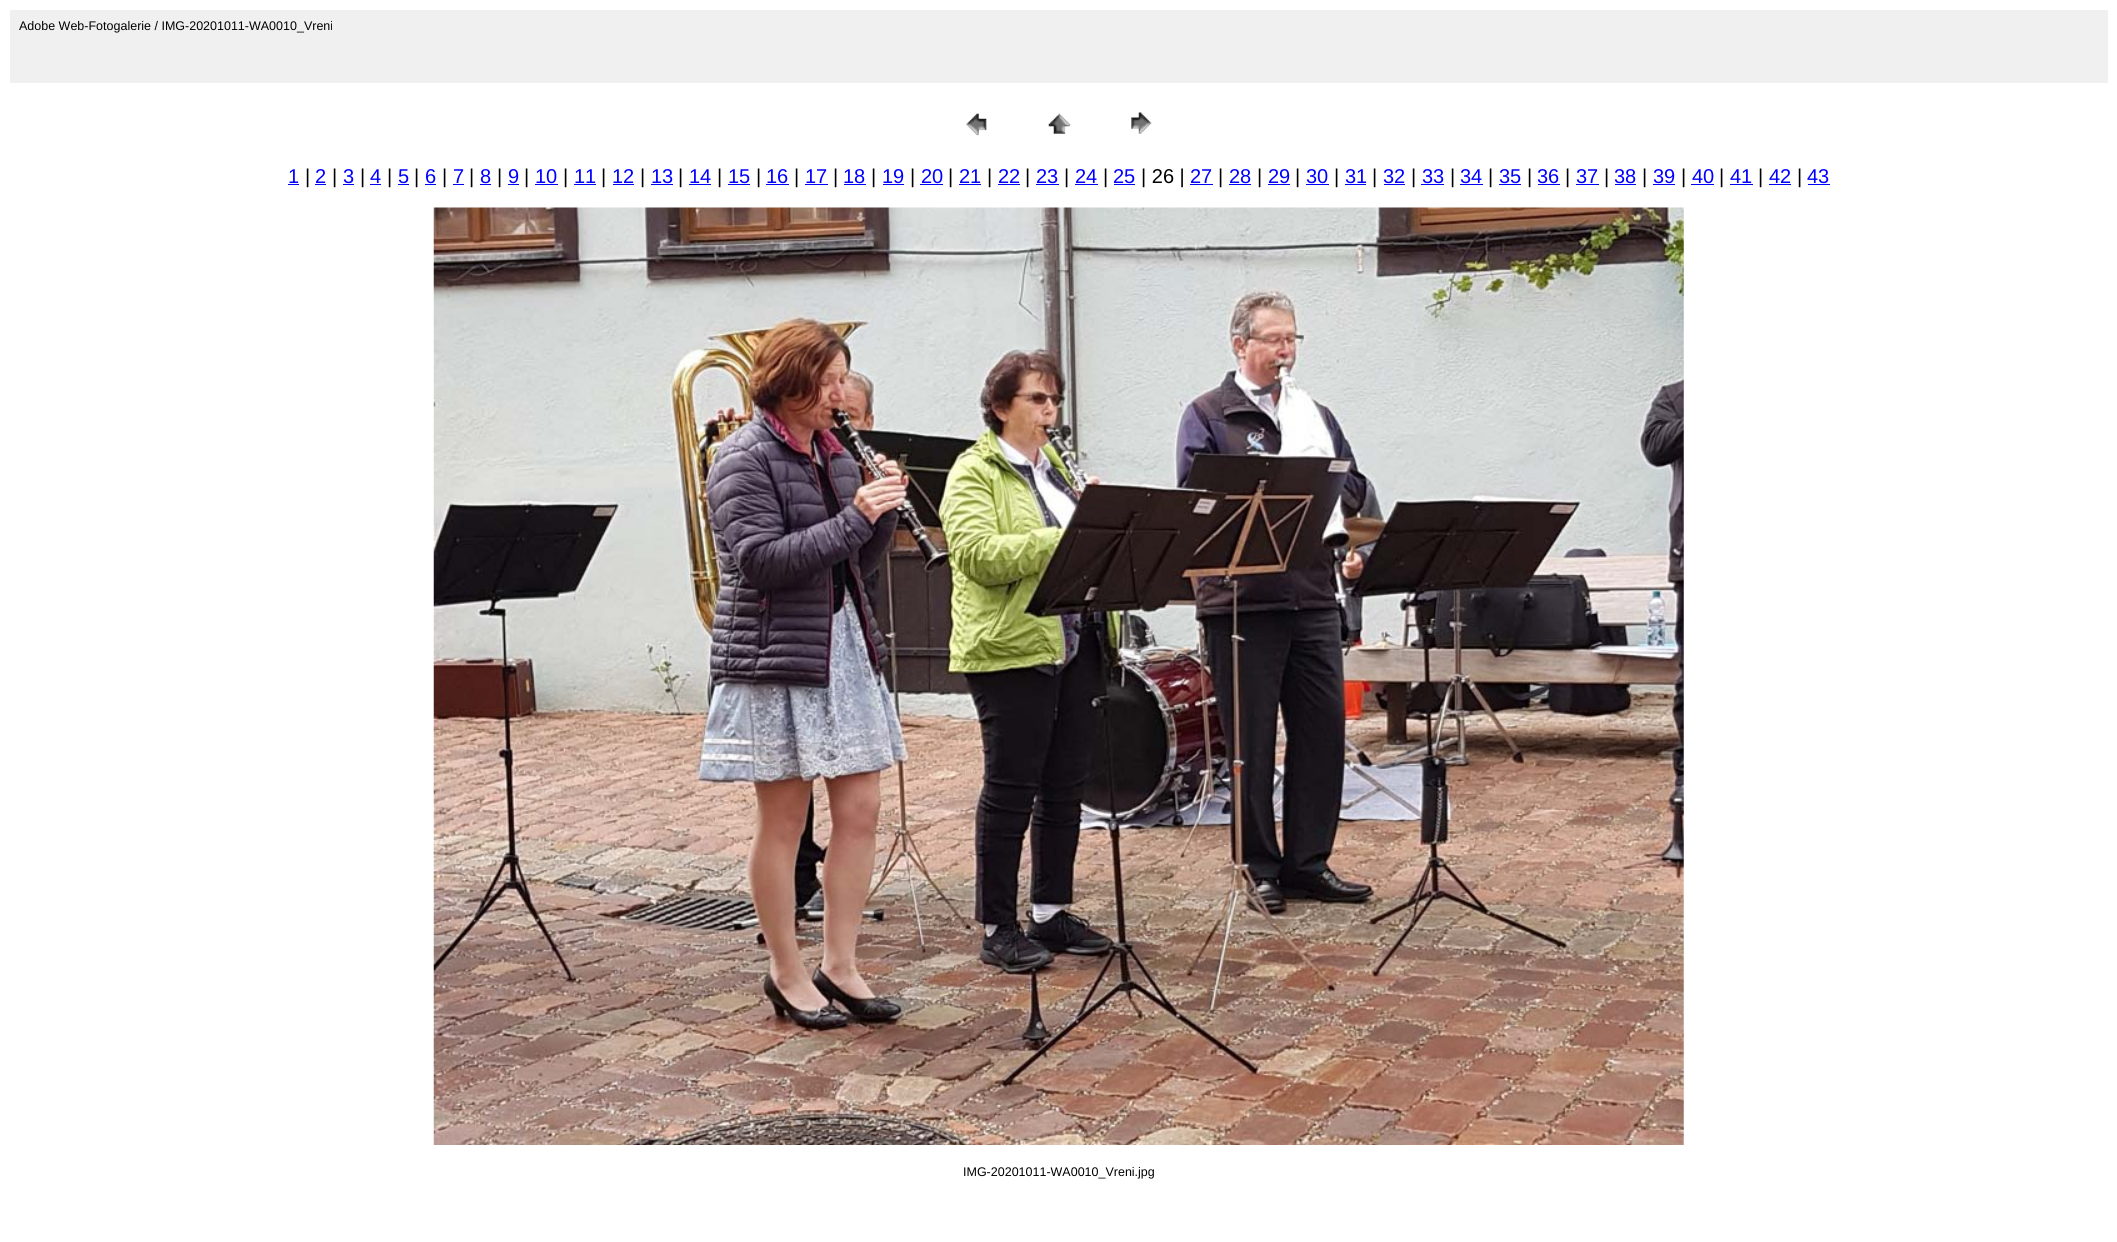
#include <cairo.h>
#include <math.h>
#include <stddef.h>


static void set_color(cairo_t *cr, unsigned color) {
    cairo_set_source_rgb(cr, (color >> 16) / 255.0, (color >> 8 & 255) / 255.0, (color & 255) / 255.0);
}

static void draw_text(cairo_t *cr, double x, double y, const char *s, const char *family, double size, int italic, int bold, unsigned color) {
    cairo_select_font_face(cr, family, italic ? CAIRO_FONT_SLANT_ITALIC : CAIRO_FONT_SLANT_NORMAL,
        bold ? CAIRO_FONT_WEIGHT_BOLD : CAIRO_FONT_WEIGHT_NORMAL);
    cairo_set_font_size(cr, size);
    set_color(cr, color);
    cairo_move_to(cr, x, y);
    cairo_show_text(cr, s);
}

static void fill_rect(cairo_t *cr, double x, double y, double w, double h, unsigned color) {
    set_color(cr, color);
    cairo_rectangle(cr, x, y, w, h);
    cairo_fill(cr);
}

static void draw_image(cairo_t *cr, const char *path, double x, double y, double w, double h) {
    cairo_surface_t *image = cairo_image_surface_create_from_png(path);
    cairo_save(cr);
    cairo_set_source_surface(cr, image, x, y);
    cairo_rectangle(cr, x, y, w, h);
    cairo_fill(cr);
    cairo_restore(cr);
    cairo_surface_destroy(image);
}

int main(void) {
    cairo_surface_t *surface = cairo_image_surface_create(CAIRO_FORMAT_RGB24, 2117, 1242);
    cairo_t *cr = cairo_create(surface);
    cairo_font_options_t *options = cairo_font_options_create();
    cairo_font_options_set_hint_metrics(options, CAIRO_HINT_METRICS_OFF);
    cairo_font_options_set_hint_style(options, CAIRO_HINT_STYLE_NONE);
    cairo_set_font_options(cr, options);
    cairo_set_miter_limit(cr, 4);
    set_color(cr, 0xFFFFFF);
    cairo_paint(cr);
    fill_rect(cr, 10, 10, 2098, 73, 0xF0F0F0);
    draw_text(cr, 19, 30, "Adobe Web-Fotogalerie / IMG-20201011-WA0010_Vreni", "Liberation Sans", 12.5, 0, 0, 0x000000);
    draw_image(cr, "assets/img1.png", 966, 113, 21, 23);
    draw_image(cr, "assets/img2.png", 1048, 113, 23, 21);
    draw_image(cr, "assets/img3.png", 1131, 112, 21, 22);
    draw_text(cr, 288, 183, "1", "Liberation Sans", 20, 0, 0, 0x0000FF);
    fill_rect(cr, 288, 184, 11, 1, 0x0000FF);
    draw_text(cr, 305, 183, "|", "Liberation Sans", 20, 0, 0, 0x000000);
    draw_text(cr, 315, 183, "2", "Liberation Sans", 20, 0, 0, 0x0000FF);
    fill_rect(cr, 315, 184, 11, 1, 0x0000FF);
    draw_text(cr, 332, 183, "|", "Liberation Sans", 20, 0, 0, 0x000000);
    draw_text(cr, 343, 183, "3", "Liberation Sans", 20, 0, 0, 0x0000FF);
    fill_rect(cr, 343, 184, 11, 1, 0x0000FF);
    draw_text(cr, 360, 183, "|", "Liberation Sans", 20, 0, 0, 0x000000);
    draw_text(cr, 370, 183, "4", "Liberation Sans", 20, 0, 0, 0x0000FF);
    fill_rect(cr, 370, 184, 11, 1, 0x0000FF);
    draw_text(cr, 387, 183, "|", "Liberation Sans", 20, 0, 0, 0x000000);
    draw_text(cr, 398, 183, "5", "Liberation Sans", 20, 0, 0, 0x0000FF);
    fill_rect(cr, 398, 184, 11, 1, 0x0000FF);
    draw_text(cr, 414, 183, "|", "Liberation Sans", 20, 0, 0, 0x000000);
    draw_text(cr, 425, 183, "6", "Liberation Sans", 20, 0, 0, 0x0000FF);
    fill_rect(cr, 425, 184, 11, 1, 0x0000FF);
    draw_text(cr, 442, 183, "|", "Liberation Sans", 20, 0, 0, 0x000000);
    draw_text(cr, 453, 183, "7", "Liberation Sans", 20, 0, 0, 0x0000FF);
    fill_rect(cr, 453, 184, 11, 1, 0x0000FF);
    draw_text(cr, 469, 183, "|", "Liberation Sans", 20, 0, 0, 0x000000);
    draw_text(cr, 480, 183, "8", "Liberation Sans", 20, 0, 0, 0x0000FF);
    fill_rect(cr, 480, 184, 11, 1, 0x0000FF);
    draw_text(cr, 497, 183, "|", "Liberation Sans", 20, 0, 0, 0x000000);
    draw_text(cr, 508, 183, "9", "Liberation Sans", 20, 0, 0, 0x0000FF);
    fill_rect(cr, 508, 184, 11, 1, 0x0000FF);
    draw_text(cr, 524, 183, "|", "Liberation Sans", 20, 0, 0, 0x000000);
    draw_text(cr, 535, 183, "10", "Liberation Sans", 20, 0, 0, 0x0000FF);
    fill_rect(cr, 535, 184, 23, 1, 0x0000FF);
    draw_text(cr, 563, 183, "|", "Liberation Sans", 20, 0, 0, 0x000000);
    draw_text(cr, 574, 183, "11", "Liberation Sans", 20, 0, 0, 0x0000FF);
    fill_rect(cr, 574, 184, 22, 1, 0x0000FF);
    draw_text(cr, 601, 183, "|", "Liberation Sans", 20, 0, 0, 0x000000);
    draw_text(cr, 612, 183, "12", "Liberation Sans", 20, 0, 0, 0x0000FF);
    fill_rect(cr, 613, 184, 21, 1, 0x0000FF);
    draw_text(cr, 640, 183, "|", "Liberation Sans", 20, 0, 0, 0x000000);
    draw_text(cr, 651, 183, "13", "Liberation Sans", 20, 0, 0, 0x0000FF);
    fill_rect(cr, 651, 184, 22, 1, 0x0000FF);
    draw_text(cr, 678, 183, "|", "Liberation Sans", 20, 0, 0, 0x000000);
    draw_text(cr, 689, 183, "14", "Liberation Sans", 20, 0, 0, 0x0000FF);
    fill_rect(cr, 689, 184, 22, 1, 0x0000FF);
    draw_text(cr, 717, 183, "|", "Liberation Sans", 20, 0, 0, 0x000000);
    draw_text(cr, 728, 183, "15", "Liberation Sans", 20, 0, 0, 0x0000FF);
    fill_rect(cr, 728, 184, 22, 1, 0x0000FF);
    draw_text(cr, 756, 183, "|", "Liberation Sans", 20, 0, 0, 0x000000);
    draw_text(cr, 766, 183, "16", "Liberation Sans", 20, 0, 0, 0x0000FF);
    fill_rect(cr, 766, 184, 23, 1, 0x0000FF);
    draw_text(cr, 794, 183, "|", "Liberation Sans", 20, 0, 0, 0x000000);
    draw_text(cr, 805, 183, "17", "Liberation Sans", 20, 0, 0, 0x0000FF);
    fill_rect(cr, 805, 184, 23, 1, 0x0000FF);
    draw_text(cr, 833, 183, "|", "Liberation Sans", 20, 0, 0, 0x000000);
    draw_text(cr, 843, 183, "18", "Liberation Sans", 20, 0, 0, 0x0000FF);
    fill_rect(cr, 844, 184, 22, 1, 0x0000FF);
    draw_text(cr, 871, 183, "|", "Liberation Sans", 20, 0, 0, 0x000000);
    draw_text(cr, 882, 183, "19", "Liberation Sans", 20, 0, 0, 0x0000FF);
    fill_rect(cr, 883, 184, 21, 1, 0x0000FF);
    draw_text(cr, 910, 183, "|", "Liberation Sans", 20, 0, 0, 0x000000);
    draw_text(cr, 921, 183, "20", "Liberation Sans", 20, 0, 0, 0x0000FF);
    fill_rect(cr, 920, 184, 23, 1, 0x0000FF);
    draw_text(cr, 948, 183, "|", "Liberation Sans", 20, 0, 0, 0x000000);
    draw_text(cr, 959, 183, "21", "Liberation Sans", 20, 0, 0, 0x0000FF);
    fill_rect(cr, 959, 184, 22, 1, 0x0000FF);
    draw_text(cr, 987, 183, "|", "Liberation Sans", 20, 0, 0, 0x000000);
    draw_text(cr, 998, 183, "22", "Liberation Sans", 20, 0, 0, 0x0000FF);
    fill_rect(cr, 998, 184, 22, 1, 0x0000FF);
    draw_text(cr, 1025, 183, "|", "Liberation Sans", 20, 0, 0, 0x000000);
    draw_text(cr, 1036, 183, "23", "Liberation Sans", 20, 0, 0, 0x0000FF);
    fill_rect(cr, 1036, 184, 23, 1, 0x0000FF);
    draw_text(cr, 1064, 183, "|", "Liberation Sans", 20, 0, 0, 0x000000);
    draw_text(cr, 1075, 183, "24", "Liberation Sans", 20, 0, 0, 0x0000FF);
    fill_rect(cr, 1075, 184, 23, 1, 0x0000FF);
    draw_text(cr, 1103, 183, "|", "Liberation Sans", 20, 0, 0, 0x000000);
    draw_text(cr, 1113, 183, "25", "Liberation Sans", 20, 0, 0, 0x0000FF);
    fill_rect(cr, 1114, 184, 21, 1, 0x0000FF);
    draw_text(cr, 1141, 183, "| 26 |", "Liberation Sans", 20, 0, 0, 0x000000);
    draw_text(cr, 1190, 183, "27", "Liberation Sans", 20, 0, 0, 0x0000FF);
    fill_rect(cr, 1190, 184, 23, 1, 0x0000FF);
    draw_text(cr, 1218, 183, "|", "Liberation Sans", 20, 0, 0, 0x000000);
    draw_text(cr, 1229, 183, "28", "Liberation Sans", 20, 0, 0, 0x0000FF);
    fill_rect(cr, 1229, 184, 22, 1, 0x0000FF);
    draw_text(cr, 1257, 183, "|", "Liberation Sans", 20, 0, 0, 0x000000);
    draw_text(cr, 1268, 183, "29", "Liberation Sans", 20, 0, 0, 0x0000FF);
    fill_rect(cr, 1268, 184, 22, 1, 0x0000FF);
    draw_text(cr, 1295, 183, "|", "Liberation Sans", 20, 0, 0, 0x000000);
    draw_text(cr, 1306, 183, "30", "Liberation Sans", 20, 0, 0, 0x0000FF);
    fill_rect(cr, 1306, 184, 23, 1, 0x0000FF);
    draw_text(cr, 1334, 183, "|", "Liberation Sans", 20, 0, 0, 0x000000);
    draw_text(cr, 1345, 183, "31", "Liberation Sans", 20, 0, 0, 0x0000FF);
    fill_rect(cr, 1345, 184, 21, 1, 0x0000FF);
    draw_text(cr, 1372, 183, "|", "Liberation Sans", 20, 0, 0, 0x000000);
    draw_text(cr, 1383, 183, "32", "Liberation Sans", 20, 0, 0, 0x0000FF);
    fill_rect(cr, 1384, 184, 21, 1, 0x0000FF);
    draw_text(cr, 1411, 183, "|", "Liberation Sans", 20, 0, 0, 0x000000);
    draw_text(cr, 1422, 183, "33", "Liberation Sans", 20, 0, 0, 0x0000FF);
    fill_rect(cr, 1421, 184, 23, 1, 0x0000FF);
    draw_text(cr, 1450, 183, "|", "Liberation Sans", 20, 0, 0, 0x000000);
    draw_text(cr, 1460, 183, "34", "Liberation Sans", 20, 0, 0, 0x0000FF);
    fill_rect(cr, 1460, 184, 23, 1, 0x0000FF);
    draw_text(cr, 1488, 183, "|", "Liberation Sans", 20, 0, 0, 0x000000);
    draw_text(cr, 1499, 183, "35", "Liberation Sans", 20, 0, 0, 0x0000FF);
    fill_rect(cr, 1499, 184, 22, 1, 0x0000FF);
    draw_text(cr, 1527, 183, "|", "Liberation Sans", 20, 0, 0, 0x000000);
    draw_text(cr, 1537, 183, "36", "Liberation Sans", 20, 0, 0, 0x0000FF);
    fill_rect(cr, 1538, 184, 22, 1, 0x0000FF);
    draw_text(cr, 1565, 183, "|", "Liberation Sans", 20, 0, 0, 0x000000);
    draw_text(cr, 1576, 183, "37", "Liberation Sans", 20, 0, 0, 0x0000FF);
    fill_rect(cr, 1576, 184, 23, 1, 0x0000FF);
    draw_text(cr, 1604, 183, "|", "Liberation Sans", 20, 0, 0, 0x000000);
    draw_text(cr, 1614, 183, "38", "Liberation Sans", 20, 0, 0, 0x0000FF);
    fill_rect(cr, 1615, 184, 21, 1, 0x0000FF);
    draw_text(cr, 1642, 183, "|", "Liberation Sans", 20, 0, 0, 0x000000);
    draw_text(cr, 1653, 183, "39", "Liberation Sans", 20, 0, 0, 0x0000FF);
    fill_rect(cr, 1653, 184, 22, 1, 0x0000FF);
    draw_text(cr, 1681, 183, "|", "Liberation Sans", 20, 0, 0, 0x000000);
    draw_text(cr, 1692, 183, "40", "Liberation Sans", 20, 0, 0, 0x0000FF);
    fill_rect(cr, 1691, 184, 23, 1, 0x0000FF);
    draw_text(cr, 1719, 183, "|", "Liberation Sans", 20, 0, 0, 0x000000);
    draw_text(cr, 1730, 183, "41", "Liberation Sans", 20, 0, 0, 0x0000FF);
    fill_rect(cr, 1730, 184, 23, 1, 0x0000FF);
    draw_text(cr, 1758, 183, "|", "Liberation Sans", 20, 0, 0, 0x000000);
    draw_text(cr, 1769, 183, "42", "Liberation Sans", 20, 0, 0, 0x0000FF);
    fill_rect(cr, 1769, 184, 22, 1, 0x0000FF);
    draw_text(cr, 1797, 183, "|", "Liberation Sans", 20, 0, 0, 0x000000);
    draw_text(cr, 1807, 183, "43", "Liberation Sans", 20, 0, 0, 0x0000FF);
    fill_rect(cr, 1808, 184, 22, 1, 0x0000FF);
    draw_image(cr, "assets/img4.png", 433, 207, 1251, 938);
    draw_text(cr, 963, 1176, "IMG-20201011-WA0010_Vreni.jpg", "Liberation Sans", 12.5, 0, 0, 0x000000);
    cairo_surface_write_to_png(surface, "output.png");
    cairo_font_options_destroy(options);
    cairo_destroy(cr);
    cairo_surface_destroy(surface);
    return 0;
}
